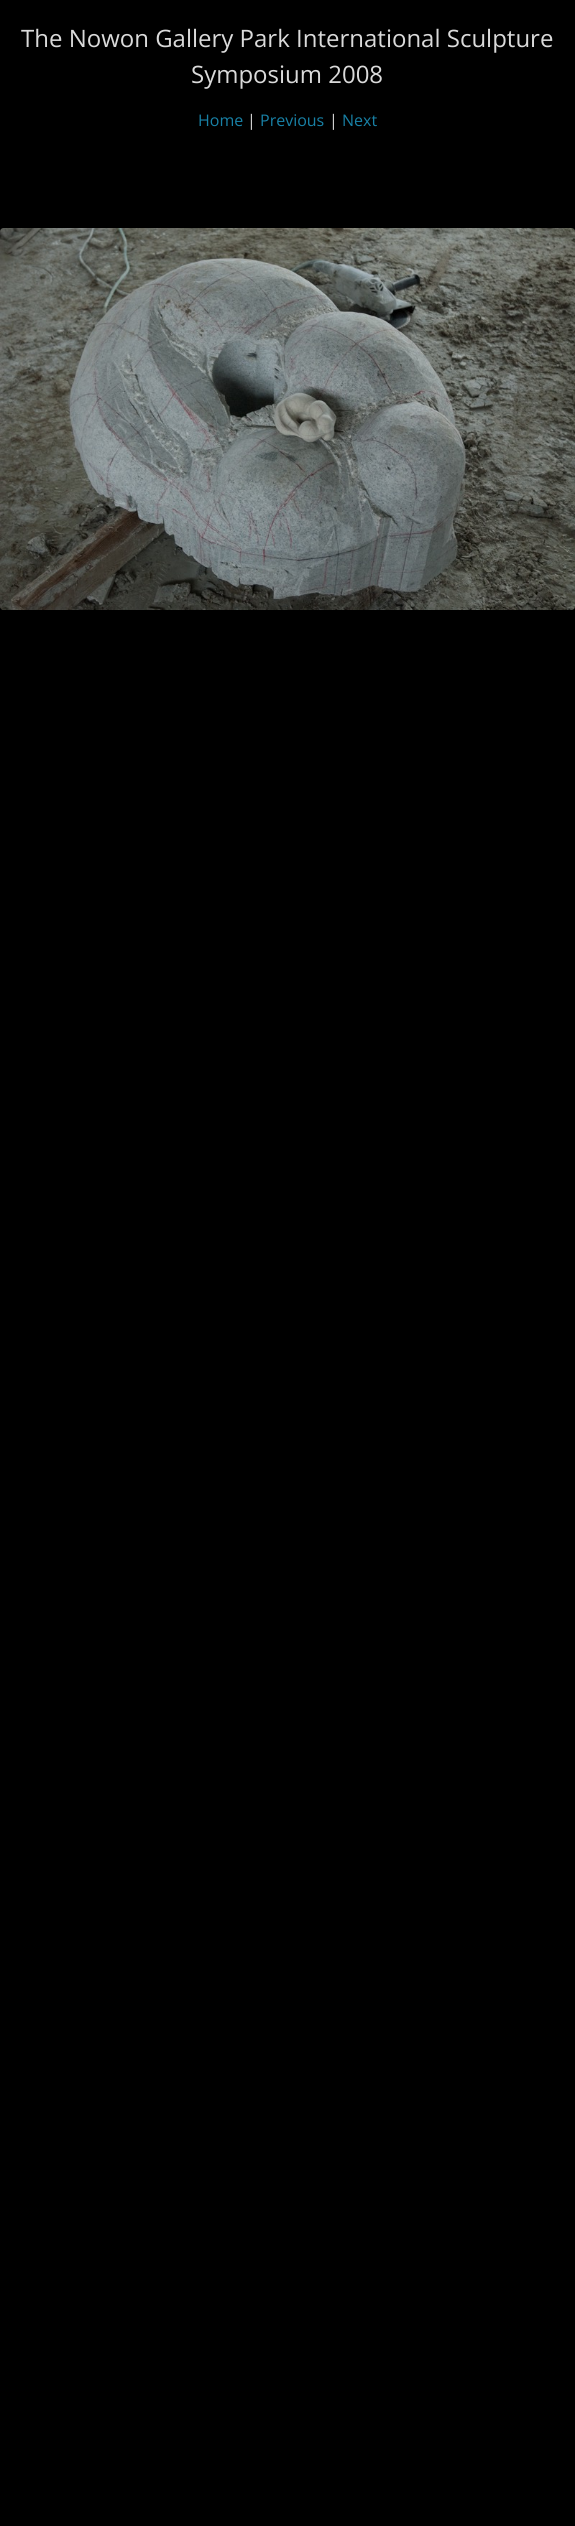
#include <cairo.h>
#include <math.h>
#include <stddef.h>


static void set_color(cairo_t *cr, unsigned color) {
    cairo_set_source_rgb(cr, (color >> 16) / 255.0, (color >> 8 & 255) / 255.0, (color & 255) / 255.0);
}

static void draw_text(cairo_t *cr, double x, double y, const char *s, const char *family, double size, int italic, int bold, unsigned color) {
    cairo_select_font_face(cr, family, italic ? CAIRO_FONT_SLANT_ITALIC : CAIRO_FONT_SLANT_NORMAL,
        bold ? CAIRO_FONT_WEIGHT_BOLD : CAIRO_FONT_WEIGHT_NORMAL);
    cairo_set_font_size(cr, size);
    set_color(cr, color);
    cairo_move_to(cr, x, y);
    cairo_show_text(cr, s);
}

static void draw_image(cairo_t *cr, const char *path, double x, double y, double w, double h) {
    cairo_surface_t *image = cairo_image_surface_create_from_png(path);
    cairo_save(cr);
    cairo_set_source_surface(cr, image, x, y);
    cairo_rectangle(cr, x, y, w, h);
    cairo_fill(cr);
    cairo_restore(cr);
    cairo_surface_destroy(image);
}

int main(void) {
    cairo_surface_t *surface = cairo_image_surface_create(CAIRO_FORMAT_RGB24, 575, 2526);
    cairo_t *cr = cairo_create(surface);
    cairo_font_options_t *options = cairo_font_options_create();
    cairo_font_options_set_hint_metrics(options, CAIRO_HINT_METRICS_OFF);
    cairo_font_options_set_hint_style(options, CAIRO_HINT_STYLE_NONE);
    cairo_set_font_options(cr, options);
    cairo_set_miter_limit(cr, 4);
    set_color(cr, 0x000000);
    cairo_paint(cr);
    draw_text(cr, 21, 47, "The Nowon Gallery Park International Sculpture", "Open Sans", 24, 0, 0, 0xDADADA);
    draw_text(cr, 191, 83, "Symposium 2008", "Open Sans", 24, 0, 0, 0xDADADA);
    draw_text(cr, 198, 126, "Home", "Open Sans", 16, 0, 0, 0x1881A6);
    draw_text(cr, 247, 126, "|", "Open Sans", 16, 0, 0, 0xDADADA);
    draw_text(cr, 260, 126, "Previous", "Open Sans", 16, 0, 0, 0x1881A6);
    draw_text(cr, 329, 126, "|", "Open Sans", 16, 0, 0, 0xDADADA);
    draw_text(cr, 342, 126, "Next", "Open Sans", 16, 0, 0, 0x1881A6);
    draw_image(cr, "assets/img1.png", 0, 228, 575, 382);
    cairo_surface_write_to_png(surface, "output.png");
    cairo_font_options_destroy(options);
    cairo_destroy(cr);
    cairo_surface_destroy(surface);
    return 0;
}
